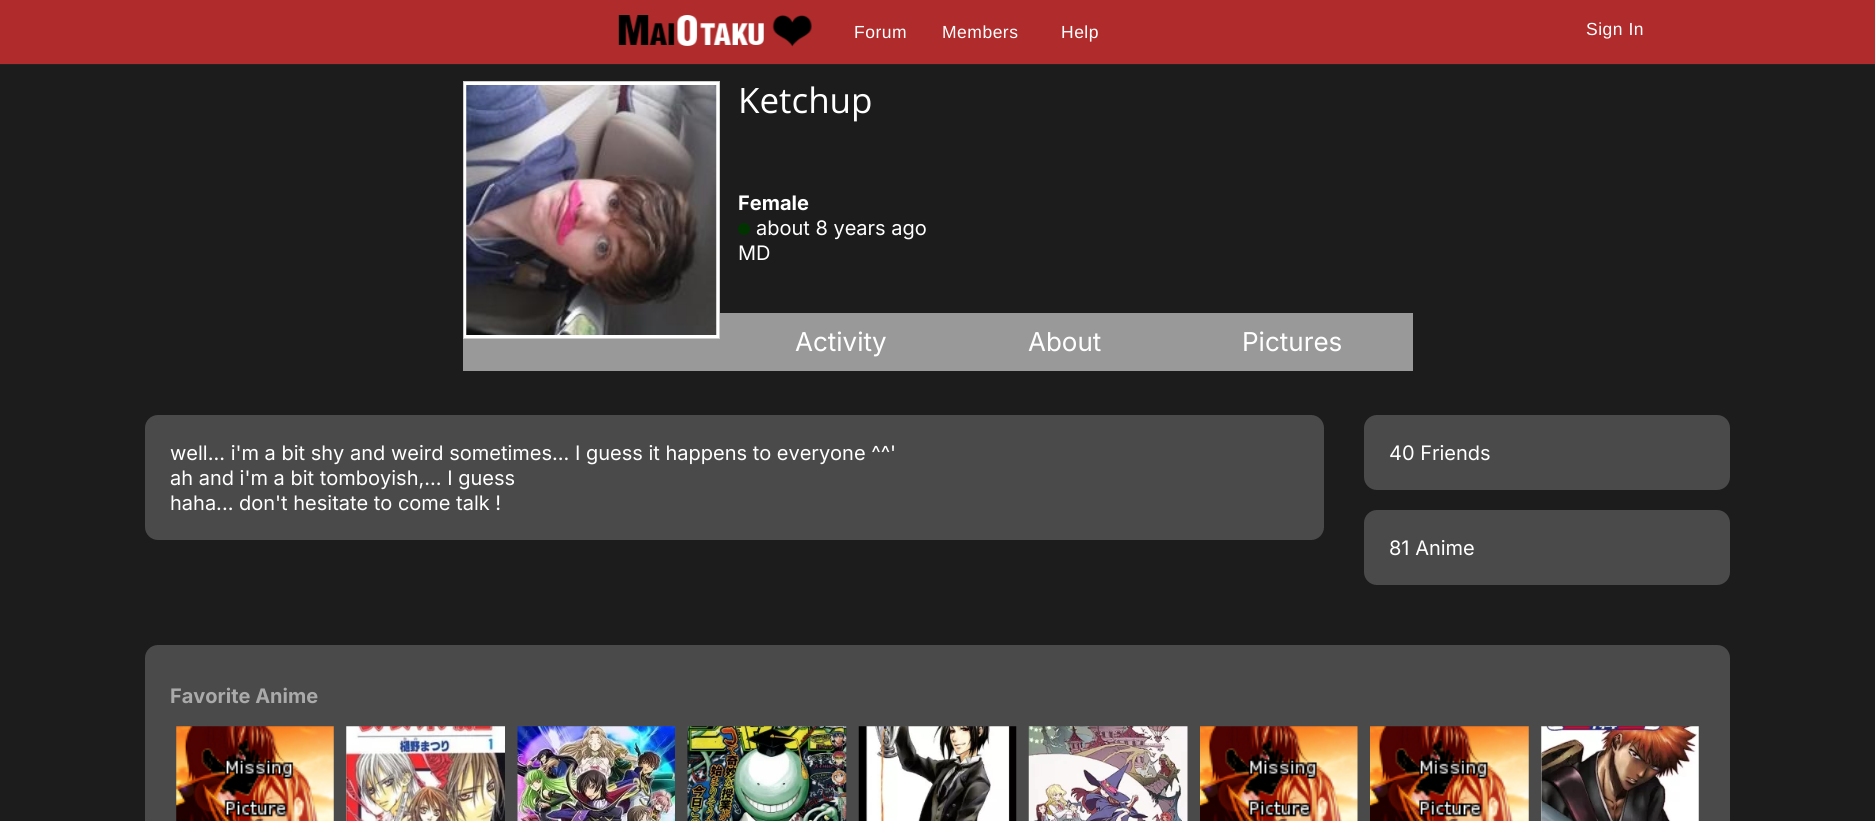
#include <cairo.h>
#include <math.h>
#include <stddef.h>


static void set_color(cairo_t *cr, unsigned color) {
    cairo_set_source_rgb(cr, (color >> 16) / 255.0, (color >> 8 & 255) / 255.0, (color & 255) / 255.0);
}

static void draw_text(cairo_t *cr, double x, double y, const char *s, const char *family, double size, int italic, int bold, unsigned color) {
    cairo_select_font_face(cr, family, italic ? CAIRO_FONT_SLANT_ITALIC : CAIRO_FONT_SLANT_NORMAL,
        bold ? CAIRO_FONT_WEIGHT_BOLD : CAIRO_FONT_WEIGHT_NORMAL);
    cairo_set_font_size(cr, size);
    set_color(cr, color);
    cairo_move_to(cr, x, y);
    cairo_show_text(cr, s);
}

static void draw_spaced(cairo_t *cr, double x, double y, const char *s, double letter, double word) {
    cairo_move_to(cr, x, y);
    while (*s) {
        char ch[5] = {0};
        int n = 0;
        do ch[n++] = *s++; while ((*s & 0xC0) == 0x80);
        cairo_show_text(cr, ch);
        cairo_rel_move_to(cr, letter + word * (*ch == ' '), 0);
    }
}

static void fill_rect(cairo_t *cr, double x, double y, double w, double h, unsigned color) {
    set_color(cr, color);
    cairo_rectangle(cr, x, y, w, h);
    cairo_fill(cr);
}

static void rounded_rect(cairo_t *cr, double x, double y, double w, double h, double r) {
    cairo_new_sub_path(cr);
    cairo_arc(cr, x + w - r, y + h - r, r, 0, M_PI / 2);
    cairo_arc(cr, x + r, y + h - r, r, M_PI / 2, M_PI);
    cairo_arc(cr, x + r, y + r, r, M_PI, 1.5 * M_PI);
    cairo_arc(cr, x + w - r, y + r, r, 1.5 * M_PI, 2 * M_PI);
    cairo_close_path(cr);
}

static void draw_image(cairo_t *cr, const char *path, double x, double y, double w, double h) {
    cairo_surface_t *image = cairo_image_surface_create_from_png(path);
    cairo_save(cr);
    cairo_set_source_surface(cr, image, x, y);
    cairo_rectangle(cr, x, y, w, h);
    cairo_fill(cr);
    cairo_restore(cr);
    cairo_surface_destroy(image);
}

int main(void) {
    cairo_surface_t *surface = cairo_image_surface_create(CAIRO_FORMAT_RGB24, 1875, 821);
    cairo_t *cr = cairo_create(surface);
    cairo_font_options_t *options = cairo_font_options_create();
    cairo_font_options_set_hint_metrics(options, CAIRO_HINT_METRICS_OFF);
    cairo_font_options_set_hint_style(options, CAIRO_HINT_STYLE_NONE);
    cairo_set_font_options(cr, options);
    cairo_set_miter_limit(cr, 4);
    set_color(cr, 0x1D1C1C);
    cairo_paint(cr);
    fill_rect(cr, 0, 0, 1875, 64, 0xB02B2C);
    fill_rect(cr, 0, 64, 1875, 1, 0x222222);
    draw_image(cr, "assets/img1.png", 618, 15, 194, 32);
    cairo_select_font_face(cr, "Liberation Sans", CAIRO_FONT_SLANT_NORMAL, CAIRO_FONT_WEIGHT_NORMAL);
    cairo_set_font_size(cr, 17.5);
    set_color(cr, 0xFFFFFF);
    draw_spaced(cr, 854, 38, "Forum", 0.5, 0);
    draw_spaced(cr, 942, 38, "Members", 0.5, 0);
    draw_spaced(cr, 1061, 38, "Help", 0.5, 0);
    draw_spaced(cr, 1586, 35, "Sign In", 0.5, 0);
    fill_rect(cr, 463, 313, 950, 58, 0x999999);
    set_color(cr, 0xFFFFFF);
    cairo_rectangle(cr, 463.5, 81.5, 256, 257);
    cairo_fill_preserve(cr);
    set_color(cr, 0xCCCCCC);
    cairo_set_line_width(cr, 1);
    cairo_stroke(cr);
    draw_image(cr, "assets/img2.png", 466, 85, 251, 250);
    draw_text(cr, 738, 113, "Ketchup", "Open Sans", 35, 0, 0, 0xFFFFFF);
    draw_text(cr, 738, 210, "Female", "Inter", 20, 0, 1, 0xFFFFFF);
    set_color(cr, 0x003300);
    cairo_new_path(cr);
    cairo_arc(cr, 744, 229, 6, 0, 2 * M_PI);
    cairo_fill(cr);
    draw_text(cr, 756, 235, "about 8 years ago", "Inter", 20, 0, 0, 0xFFFFFF);
    draw_text(cr, 738, 260, "MD", "Inter", 20, 0, 0, 0xFFFFFF);
    draw_text(cr, 795, 351, "Activity", "Inter", 26, 0, 0, 0xFFFFFF);
    draw_text(cr, 1028, 351, "About", "Inter", 26, 0, 0, 0xFFFFFF);
    draw_text(cr, 1242, 351, "Pictures", "Inter", 26, 0, 0, 0xFFFFFF);
    set_color(cr, 0x4A4A4A);
    rounded_rect(cr, 145, 415, 1179, 125, 13);
    cairo_fill(cr);
    draw_text(cr, 170, 460, "well... i'm a bit shy and weird sometimes... I guess it happens to everyone ^^'", "Inter", 20, 0, 0, 0xFFFFFF);
    draw_text(cr, 170, 485, "ah and i'm a bit tomboyish,... I guess", "Inter", 20, 0, 0, 0xFFFFFF);
    draw_text(cr, 170, 510, "haha... don't hesitate to come talk !", "Inter", 20, 0, 0, 0xFFFFFF);
    set_color(cr, 0x4A4A4A);
    rounded_rect(cr, 1364, 415, 366, 75, 13);
    cairo_fill(cr);
    draw_text(cr, 1389, 460, "40 Friends", "Inter", 20, 0, 0, 0xFFFFFF);
    set_color(cr, 0x4A4A4A);
    rounded_rect(cr, 1364, 510, 366, 75, 13);
    cairo_fill(cr);
    draw_text(cr, 1389, 555, "81 Anime", "Inter", 20, 0, 0, 0xFFFFFF);
    set_color(cr, 0x4A4A4A);
    rounded_rect(cr, 145, 645, 1585, 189, 13);
    cairo_fill(cr);
    draw_text(cr, 170, 703, "Favorite Anime", "Inter", 20, 0, 1, 0xAAAAAA);
    draw_image(cr, "assets/img3.png", 176, 726, 158, 95);
    draw_image(cr, "assets/img4.png", 346, 726, 159, 95);
    draw_image(cr, "assets/img5.png", 517, 726, 158, 95);
    draw_image(cr, "assets/img6.png", 687, 726, 160, 95);
    draw_image(cr, "assets/img7.png", 858, 726, 159, 95);
    draw_image(cr, "assets/img8.png", 1028, 726, 160, 95);
    draw_image(cr, "assets/img9.png", 1200, 726, 158, 95);
    draw_image(cr, "assets/img10.png", 1370, 726, 159, 95);
    draw_image(cr, "assets/img11.png", 1541, 726, 158, 95);
    cairo_surface_write_to_png(surface, "output.png");
    cairo_font_options_destroy(options);
    cairo_destroy(cr);
    cairo_surface_destroy(surface);
    return 0;
}
